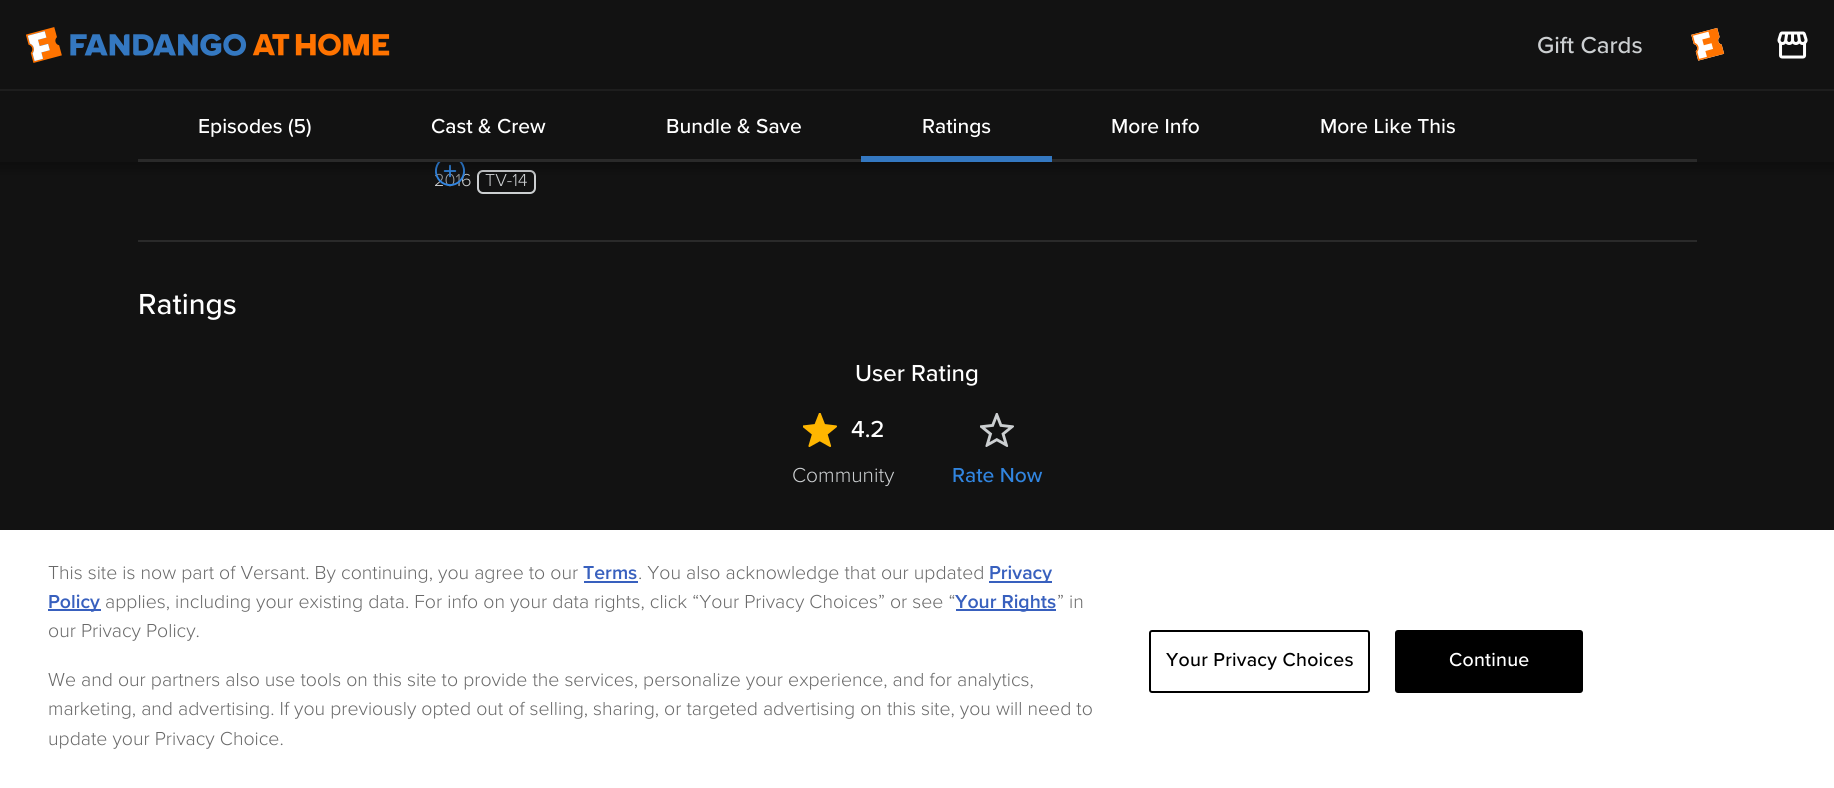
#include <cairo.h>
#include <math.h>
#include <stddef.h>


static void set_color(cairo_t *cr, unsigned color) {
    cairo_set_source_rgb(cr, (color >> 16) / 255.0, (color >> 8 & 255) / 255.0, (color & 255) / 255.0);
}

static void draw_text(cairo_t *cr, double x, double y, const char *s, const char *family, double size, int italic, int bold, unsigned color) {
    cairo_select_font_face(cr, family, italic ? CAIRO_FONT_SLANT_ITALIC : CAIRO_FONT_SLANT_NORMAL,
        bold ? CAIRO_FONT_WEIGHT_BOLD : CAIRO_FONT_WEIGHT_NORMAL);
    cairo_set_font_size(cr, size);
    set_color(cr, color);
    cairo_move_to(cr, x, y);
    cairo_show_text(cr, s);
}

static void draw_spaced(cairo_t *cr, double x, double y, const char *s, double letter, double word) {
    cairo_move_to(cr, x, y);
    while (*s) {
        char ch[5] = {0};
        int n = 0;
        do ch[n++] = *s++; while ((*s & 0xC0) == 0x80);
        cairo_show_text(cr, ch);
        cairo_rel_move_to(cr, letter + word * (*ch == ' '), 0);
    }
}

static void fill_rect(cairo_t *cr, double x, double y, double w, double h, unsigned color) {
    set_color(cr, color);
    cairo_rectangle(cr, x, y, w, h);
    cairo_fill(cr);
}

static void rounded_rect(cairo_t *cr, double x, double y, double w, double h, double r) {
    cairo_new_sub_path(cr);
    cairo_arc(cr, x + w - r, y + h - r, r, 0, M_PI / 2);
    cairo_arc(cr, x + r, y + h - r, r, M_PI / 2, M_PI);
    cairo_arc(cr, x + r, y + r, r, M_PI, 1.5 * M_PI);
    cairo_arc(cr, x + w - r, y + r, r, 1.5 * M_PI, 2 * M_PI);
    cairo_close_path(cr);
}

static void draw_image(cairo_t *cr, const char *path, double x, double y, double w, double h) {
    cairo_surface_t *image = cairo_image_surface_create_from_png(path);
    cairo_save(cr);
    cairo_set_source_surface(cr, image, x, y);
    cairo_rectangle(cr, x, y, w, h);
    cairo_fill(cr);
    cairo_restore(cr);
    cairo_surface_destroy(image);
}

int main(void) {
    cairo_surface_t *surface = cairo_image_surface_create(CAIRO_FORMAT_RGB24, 1834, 788);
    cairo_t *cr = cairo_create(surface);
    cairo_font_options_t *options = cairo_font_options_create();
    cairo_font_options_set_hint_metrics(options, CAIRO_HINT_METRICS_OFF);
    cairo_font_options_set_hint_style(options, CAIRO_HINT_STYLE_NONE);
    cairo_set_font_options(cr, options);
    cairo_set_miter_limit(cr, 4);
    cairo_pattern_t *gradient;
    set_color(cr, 0x121212);
    cairo_paint(cr);
    fill_rect(cr, 0, 89, 1834, 2, 0x1E1E1E);
    draw_image(cr, "assets/img1.png", 26, 27, 364, 36);
    draw_text(cr, 1537, 53, "Gift Cards", "Proxima Nova Medium", 24, 0, 0, 0xCCCFD1);
    draw_image(cr, "assets/img2.png", 1691, 27, 34, 34);
    draw_image(cr, "assets/img3.png", 1777, 31, 31, 28);
    draw_text(cr, 198, 133, "Episodes (5)", "Proxima Nova Medium", 21, 0, 0, 0xFFFFFF);
    draw_text(cr, 431, 133, "Cast & Crew", "Proxima Nova Medium", 21, 0, 0, 0xFFFFFF);
    draw_text(cr, 666, 133, "Bundle & Save", "Proxima Nova Medium", 21, 0, 0, 0xFFFFFF);
    fill_rect(cr, 138, 159, 1559, 3, 0x2A2A2A);
    fill_rect(cr, 861, 156, 191, 6, 0x3478C1);
    draw_text(cr, 922, 133, "Ratings", "Proxima Nova Medium", 21, 0, 0, 0xFFFFFF);
    draw_text(cr, 1111, 133, "More Info", "Proxima Nova Medium", 21, 0, 0, 0xFFFFFF);
    draw_text(cr, 1320, 133, "More Like This", "Proxima Nova Medium", 21, 0, 0, 0xFFFFFF);
    draw_text(cr, 434, 186, "2016", "Proxima Nova Light", 18, 0, 0, 0xCCCFD1);
    draw_image(cr, "assets/img4.png", 435, 162, 30, 24);
    rounded_rect(cr, 478, 171, 57, 22, 5);
    cairo_stroke(cr);
    gradient = cairo_pattern_create_linear(917, 177, 917, 162);
    cairo_pattern_add_color_stop_rgba(gradient, 0, 0, 0, 0, 0);
    cairo_pattern_add_color_stop_rgba(gradient, 1, 0, 0, 0, 0.25);
    cairo_set_source(cr, gradient);
    cairo_pattern_destroy(gradient);
    cairo_rectangle(cr, 0, 162, 1834, 14);
    cairo_fill(cr);
    fill_rect(cr, 138, 240, 1559, 2, 0x2A2A2A);
    draw_text(cr, 485, 186, "TV-14", "Proxima Nova Light", 18, 0, 0, 0xCCCFD1);
    draw_text(cr, 138, 314, "Ratings", "Proxima Nova Medium", 30, 0, 0, 0xFFFFFF);
    draw_text(cr, 855, 381, "User Rating", "Proxima Nova Medium", 24, 0, 0, 0xFFFFFF);
    draw_image(cr, "assets/img5.png", 803, 413, 34, 34);
    draw_text(cr, 851, 437, "4.2", "Proxima Nova Medium", 24, 0, 0, 0xFFFFFF);
    draw_text(cr, 792, 482, "Community", "Proxima Nova Light", 21, 0, 0, 0xCCCFD1);
    draw_image(cr, "assets/img6.png", 980, 413, 34, 34);
    draw_text(cr, 952, 482, "Rate Now", "Proxima Nova Medium", 21, 0, 0, 0x3185E0);
    fill_rect(cr, 0, 530, 1834, 258, 0xFFFFFF);
    draw_text(cr, 48, 579, "This site is now part of Versant. By continuing, you agree to our", "Proxima Nova Light", 19.5, 0, 0, 0x696969);
    draw_text(cr, 583, 579, "Terms", "Proxima Nova SemiBold", 19.5, 0, 0, 0x3860BE);
    fill_rect(cr, 584, 581, 54, 2, 0x3860BE);
    draw_text(cr, 638, 579, ". You also acknowledge that our updated", "Proxima Nova Light", 19.5, 0, 0, 0x696969);
    fill_rect(cr, 989, 581, 63, 2, 0x3860BE);
    draw_text(cr, 989, 579, "Privacy", "Proxima Nova SemiBold", 19.5, 0, 0, 0x3860BE);
    fill_rect(cr, 48, 609, 53, 2, 0x3860BE);
    draw_text(cr, 48, 608, "Policy", "Proxima Nova SemiBold", 19.5, 0, 0, 0x3860BE);
    draw_text(cr, 105, 608, "applies, including your existing data. For info on your data rights, click “Your Privacy Choices” or see “", "Proxima Nova Light", 19.5, 0, 0, 0x696969);
    fill_rect(cr, 956, 609, 100, 2, 0x3860BE);
    draw_text(cr, 955, 608, "Your Rights", "Proxima Nova SemiBold", 19.5, 0, 0, 0x3860BE);
    draw_text(cr, 1057, 608, "” in", "Proxima Nova Light", 19.5, 0, 0, 0x696969);
    draw_text(cr, 48, 637, "our Privacy Policy.", "Proxima Nova Light", 19.5, 0, 0, 0x696969);
    draw_text(cr, 48, 686, "We and our partners also use tools on this site to provide the services, personalize your experience, and for analytics,", "Proxima Nova Light", 19.5, 0, 0, 0x696969);
    draw_text(cr, 48, 715, "marketing, and advertising. If you previously opted out of selling, sharing, or targeted advertising on this site, you will need to", "Proxima Nova Light", 19.5, 0, 0, 0x696969);
    draw_text(cr, 48, 745, "update your Privacy Choice.", "Proxima Nova Light", 19.5, 0, 0, 0x696969);
    rounded_rect(cr, 1150, 631, 219, 61, 2);
    set_color(cr, 0x000000);
    cairo_stroke(cr);
    cairo_select_font_face(cr, "Proxima Nova Medium", CAIRO_FONT_SLANT_NORMAL, CAIRO_FONT_WEIGHT_NORMAL);
    draw_spaced(cr, 1166, 666, "Your Privacy Choices", 0.25, 0);
    rounded_rect(cr, 1396, 631, 186, 61, 2);
    cairo_fill_preserve(cr);
    cairo_stroke(cr);
    set_color(cr, 0xFFFFFF);
    draw_spaced(cr, 1449, 666, "Continue", 0.25, 0);
    cairo_surface_write_to_png(surface, "output.png");
    cairo_font_options_destroy(options);
    cairo_destroy(cr);
    cairo_surface_destroy(surface);
    return 0;
}
